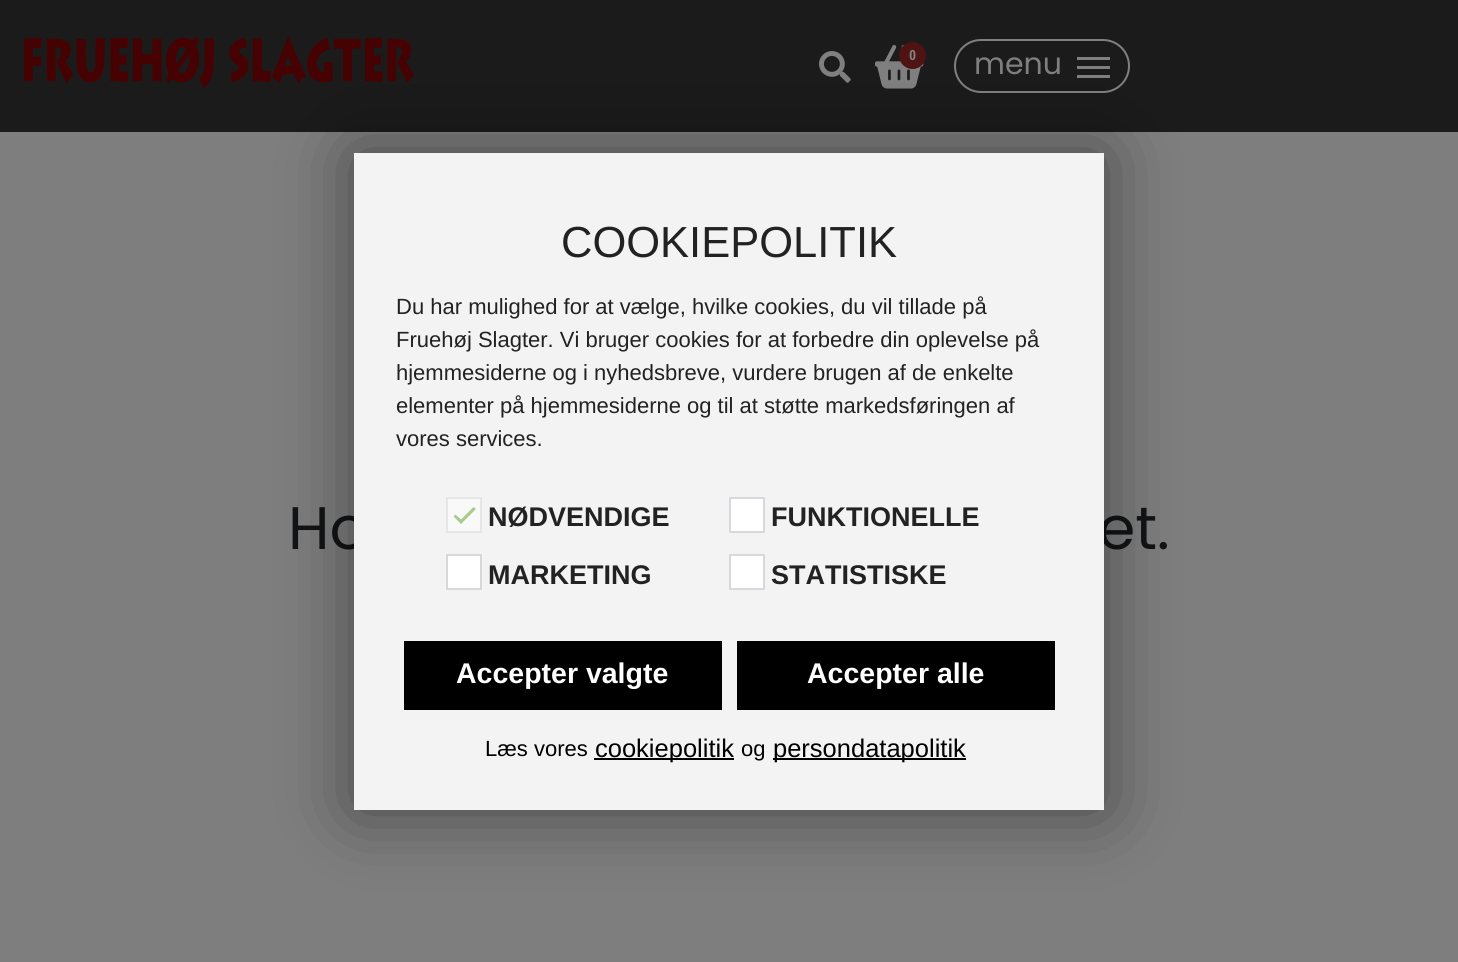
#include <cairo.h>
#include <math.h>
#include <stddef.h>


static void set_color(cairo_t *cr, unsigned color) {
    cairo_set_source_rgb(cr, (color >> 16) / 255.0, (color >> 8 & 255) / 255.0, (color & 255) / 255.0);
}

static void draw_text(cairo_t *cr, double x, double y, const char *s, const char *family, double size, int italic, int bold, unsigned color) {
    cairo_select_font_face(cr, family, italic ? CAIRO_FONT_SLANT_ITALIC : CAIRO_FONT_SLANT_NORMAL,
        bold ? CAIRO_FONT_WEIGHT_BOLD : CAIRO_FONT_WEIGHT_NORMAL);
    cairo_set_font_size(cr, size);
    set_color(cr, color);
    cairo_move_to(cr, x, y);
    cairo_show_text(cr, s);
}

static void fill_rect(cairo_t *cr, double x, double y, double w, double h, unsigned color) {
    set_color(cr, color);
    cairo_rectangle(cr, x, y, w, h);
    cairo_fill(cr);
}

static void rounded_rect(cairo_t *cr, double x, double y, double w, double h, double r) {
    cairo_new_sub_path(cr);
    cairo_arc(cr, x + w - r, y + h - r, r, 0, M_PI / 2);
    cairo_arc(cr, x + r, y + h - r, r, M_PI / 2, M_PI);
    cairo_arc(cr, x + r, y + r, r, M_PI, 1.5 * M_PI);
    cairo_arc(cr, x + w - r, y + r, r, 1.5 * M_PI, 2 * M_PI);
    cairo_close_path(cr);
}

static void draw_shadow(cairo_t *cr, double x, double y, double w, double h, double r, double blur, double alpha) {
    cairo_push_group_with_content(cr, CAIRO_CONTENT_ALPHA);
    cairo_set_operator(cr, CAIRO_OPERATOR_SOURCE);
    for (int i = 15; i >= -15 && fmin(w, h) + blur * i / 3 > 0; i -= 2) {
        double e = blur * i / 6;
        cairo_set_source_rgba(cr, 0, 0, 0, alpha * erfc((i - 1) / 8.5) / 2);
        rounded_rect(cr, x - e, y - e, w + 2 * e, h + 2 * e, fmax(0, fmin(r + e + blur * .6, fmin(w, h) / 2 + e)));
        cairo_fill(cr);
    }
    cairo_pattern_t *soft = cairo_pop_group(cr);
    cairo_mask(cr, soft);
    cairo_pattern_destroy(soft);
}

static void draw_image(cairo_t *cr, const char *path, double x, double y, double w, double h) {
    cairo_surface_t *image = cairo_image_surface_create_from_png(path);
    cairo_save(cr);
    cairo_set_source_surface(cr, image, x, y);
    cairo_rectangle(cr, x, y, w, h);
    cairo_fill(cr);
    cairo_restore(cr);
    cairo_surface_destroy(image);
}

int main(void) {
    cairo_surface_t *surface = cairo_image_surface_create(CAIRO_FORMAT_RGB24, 1458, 962);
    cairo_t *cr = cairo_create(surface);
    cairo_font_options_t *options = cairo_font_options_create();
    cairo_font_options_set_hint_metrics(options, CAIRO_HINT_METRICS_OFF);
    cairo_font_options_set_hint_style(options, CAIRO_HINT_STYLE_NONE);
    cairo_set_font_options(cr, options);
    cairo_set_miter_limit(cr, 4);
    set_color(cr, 0x7E7E7E);
    cairo_paint(cr);
    fill_rect(cr, 0, 0, 1458, 132, 0x1B1B1B);
    draw_image(cr, "assets/img1.png", 24, 36, 390, 53);
    draw_image(cr, "assets/img2.png", 819, 51, 32, 32);
    draw_image(cr, "assets/img3.png", 875, 45, 49, 44);
    set_color(cr, 0x4E1312);
    cairo_arc(cr, 912.5, 55.5, 13.5, 0, 2 * M_PI);
    cairo_fill(cr);
    draw_text(cr, 909, 60, "0", "Roboto Condensed", 14, 0, 1, 0x808080);
    rounded_rect(cr, 955, 40, 174, 52, 26);
    cairo_stroke(cr);
    draw_text(cr, 974, 74, "menu", "Poppins", 30, 0, 0, 0x808080);
    fill_rect(cr, 1077, 57, 33, 3, 0x808080);
    fill_rect(cr, 1077, 66, 33, 3, 0x808080);
    fill_rect(cr, 1077, 75, 33, 3, 0x808080);
    draw_text(cr, 288, 549, "Ho", "Poppins", 60, 0, 0, 0x111315);
    draw_text(cr, 1098, 549, "et.", "Poppins", 60, 0, 0, 0x111315);
    set_color(cr, 0x000000);
    draw_shadow(cr, 354, 153, 750, 657, 0, 37.5, 0.46);
    fill_rect(cr, 354, 153, 750, 657, 0xF3F3F3);
    draw_text(cr, 561, 257, "COOKIEPOLITIK", "Liberation Sans", 43.5, 0, 0, 0x222222);
    draw_text(cr, 396, 314, "Du har mulighed for at vælge, hvilke cookies, du vil tillade på", "Liberation Sans", 22, 0, 0, 0x222222);
    draw_text(cr, 396, 347, "Fruehøj Slagter. Vi bruger cookies for at forbedre din oplevelse på", "Liberation Sans", 22, 0, 0, 0x222222);
    draw_text(cr, 396, 380, "hjemmesiderne og i nyhedsbreve, vurdere brugen af de enkelte", "Liberation Sans", 22, 0, 0, 0x222222);
    draw_text(cr, 396, 413, "elementer på hjemmesiderne og til at støtte markedsføringen af", "Liberation Sans", 22, 0, 0, 0x222222);
    draw_text(cr, 396, 446, "vores services.", "Liberation Sans", 22, 0, 0, 0x222222);
    set_color(cr, 0xF9F9F9);
    cairo_rectangle(cr, 447, 498, 34, 34);
    cairo_fill_preserve(cr);
    set_color(cr, 0xE5E6E7);
    cairo_stroke(cr);
    set_color(cr, 0xAACB8E);
    cairo_new_path(cr);
    cairo_move_to(cr, 473.5, 507);
    cairo_line_to(cr, 476, 509);
    cairo_line_to(cr, 461, 524);
    cairo_line_to(cr, 459, 521.5);
    cairo_close_path(cr);
    cairo_fill(cr);
    cairo_new_path(cr);
    cairo_move_to(cr, 455.5, 514.5);
    cairo_line_to(cr, 463, 521.5);
    cairo_line_to(cr, 461, 524);
    cairo_line_to(cr, 453.5, 516.5);
    cairo_close_path(cr);
    cairo_fill(cr);
    draw_text(cr, 488, 526, "NØDVENDIGE", "Liberation Sans", 27, 0, 1, 0x222222);
    set_color(cr, 0xFFFFFF);
    cairo_rectangle(cr, 730, 498, 34, 34);
    cairo_fill_preserve(cr);
    set_color(cr, 0xD7D8DB);
    cairo_stroke(cr);
    draw_text(cr, 771, 526, "FUNKTIONELLE", "Liberation Sans", 27, 0, 1, 0x222222);
    set_color(cr, 0xFFFFFF);
    cairo_rectangle(cr, 447, 555, 34, 34);
    cairo_fill_preserve(cr);
    set_color(cr, 0xD7D8DB);
    cairo_stroke(cr);
    draw_text(cr, 488, 584, "MARKETING", "Liberation Sans", 27, 0, 1, 0x222222);
    set_color(cr, 0xFFFFFF);
    cairo_rectangle(cr, 730, 555, 34, 34);
    cairo_fill_preserve(cr);
    set_color(cr, 0xD7D8DB);
    cairo_stroke(cr);
    draw_text(cr, 771, 584, "STATISTISKE", "Liberation Sans", 27, 0, 1, 0x222222);
    fill_rect(cr, 404, 641, 318, 69, 0x000000);
    draw_text(cr, 456, 683, "Accepter valgte", "Liberation Sans", 28.5, 0, 1, 0xFFFFFF);
    fill_rect(cr, 737, 641, 318, 69, 0x000000);
    draw_text(cr, 807, 683, "Accepter alle", "Liberation Sans", 28.5, 0, 1, 0xFFFFFF);
    draw_text(cr, 485, 756, "Læs vores", "Liberation Sans", 22, 0, 0, 0x000000);
    fill_rect(cr, 594, 758, 140, 2, 0x000000);
    draw_text(cr, 595, 757, "cookiepolitik", "Liberation Sans", 25.5, 0, 0, 0x000000);
    draw_text(cr, 741, 756, "og", "Liberation Sans", 22, 0, 0, 0x000000);
    fill_rect(cr, 773, 758, 193, 2, 0x000000);
    draw_text(cr, 773, 757, "persondatapolitik", "Liberation Sans", 25.5, 0, 0, 0x000000);
    cairo_surface_write_to_png(surface, "output.png");
    cairo_font_options_destroy(options);
    cairo_destroy(cr);
    cairo_surface_destroy(surface);
    return 0;
}
